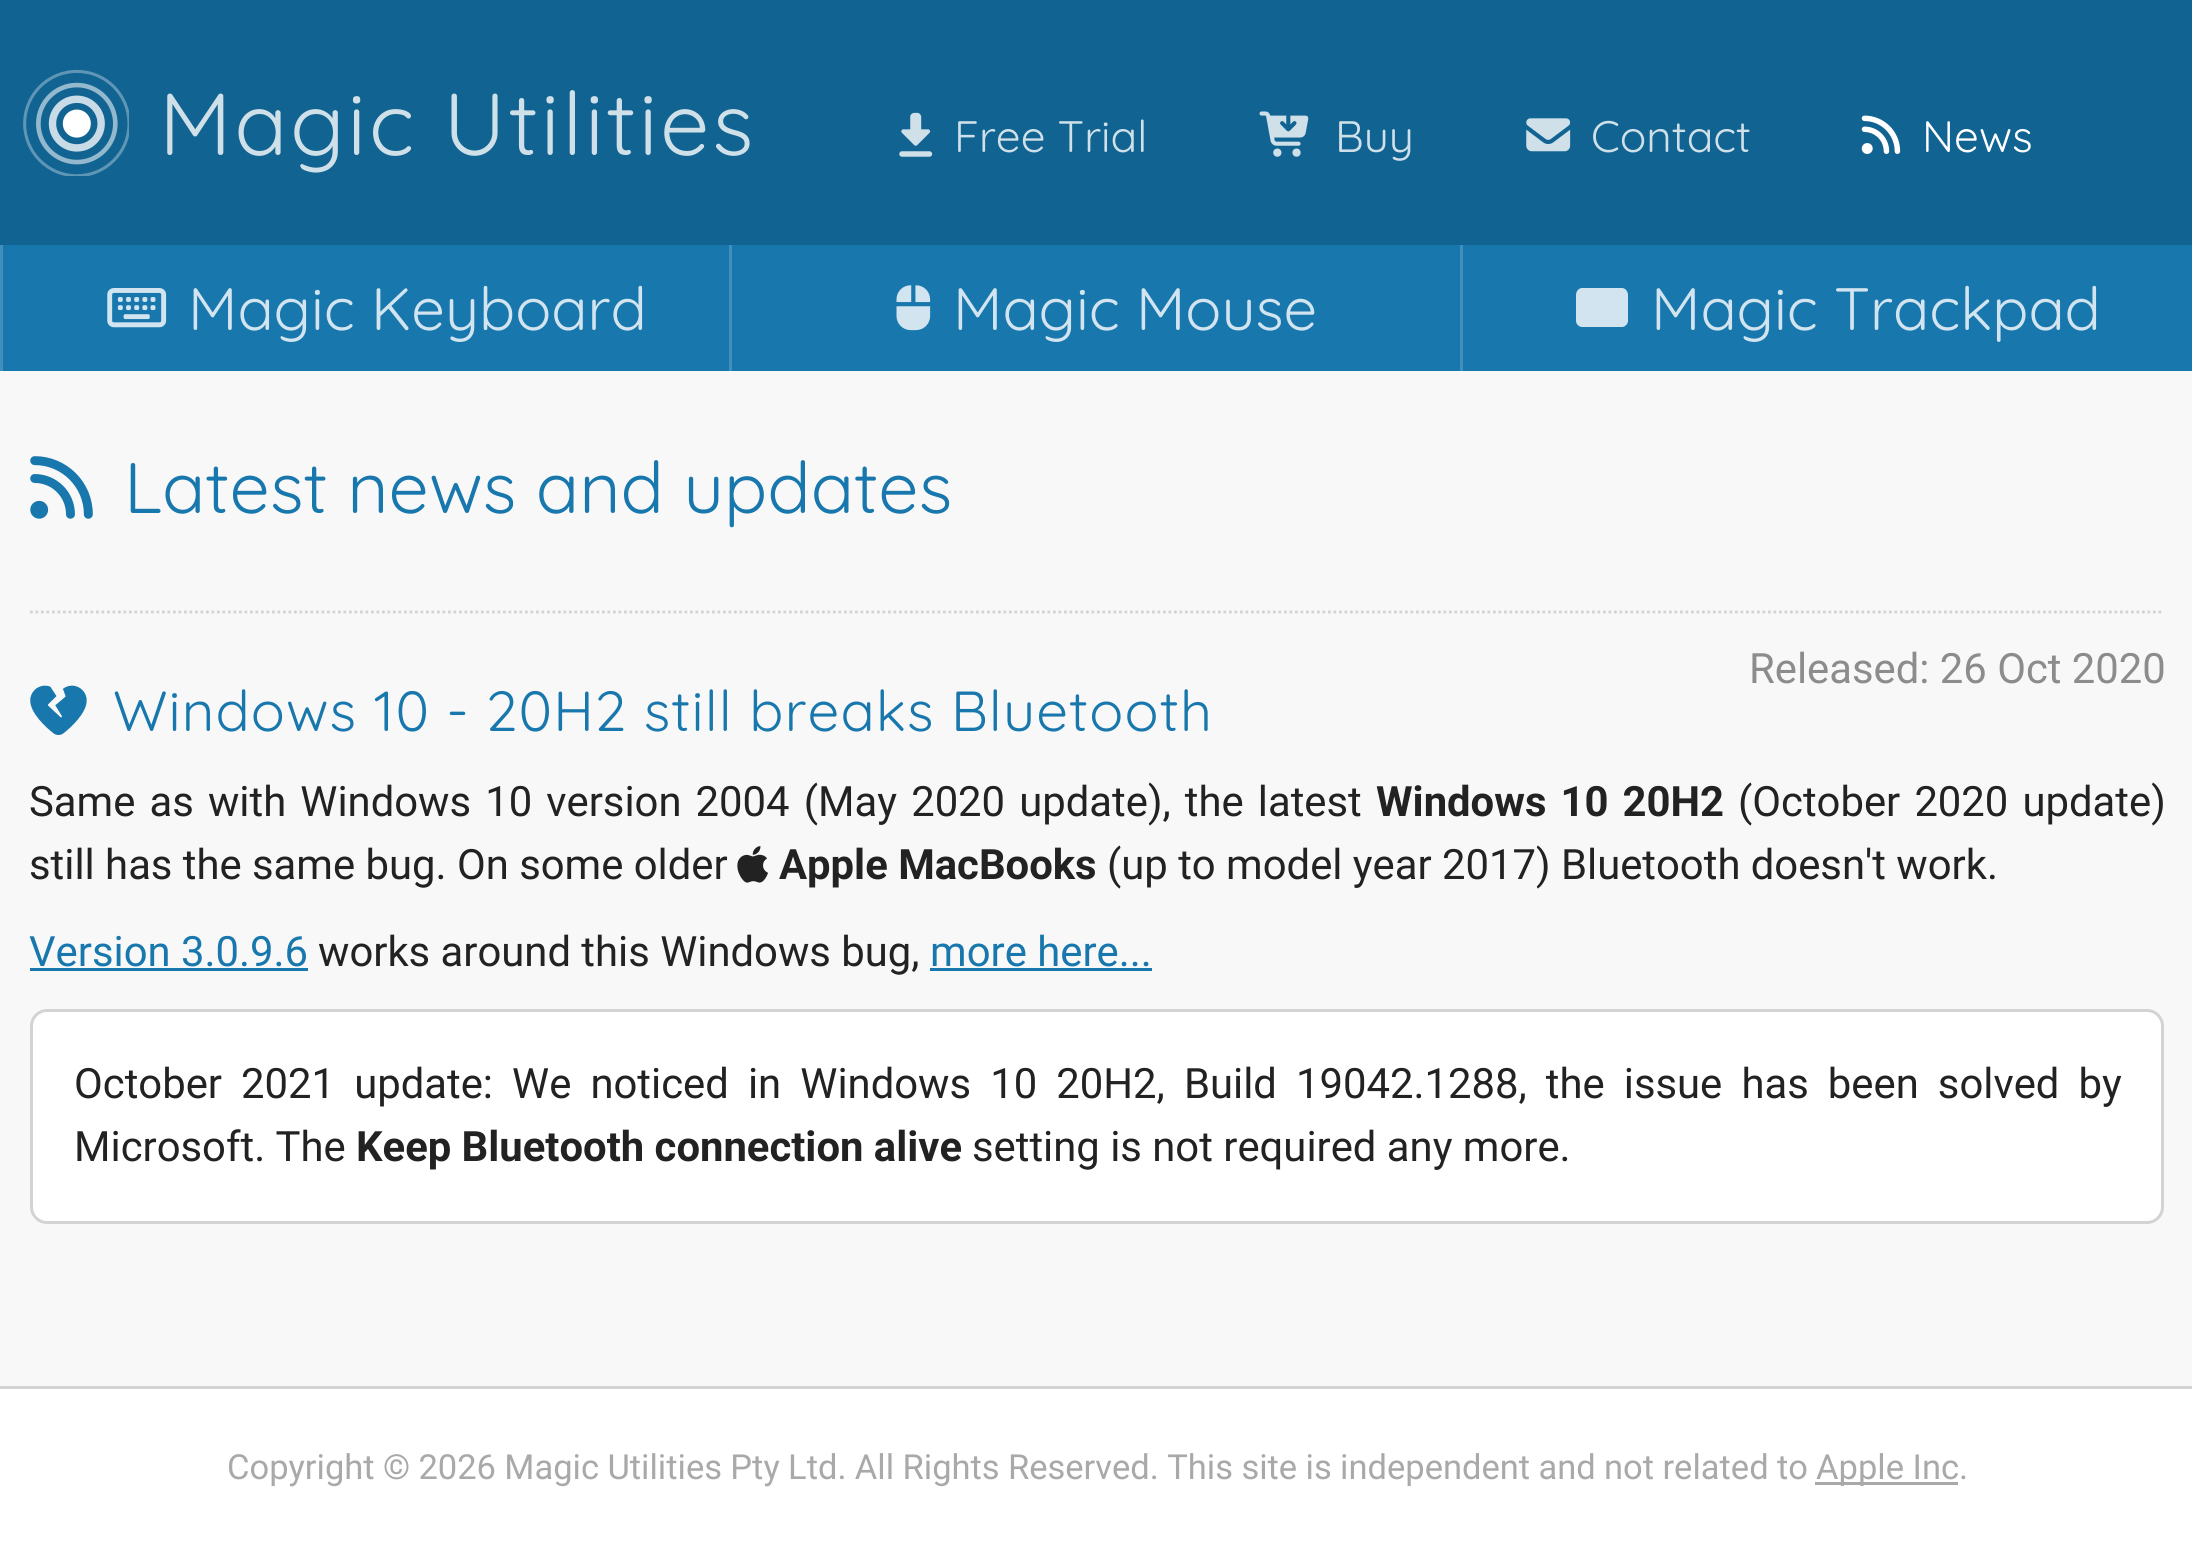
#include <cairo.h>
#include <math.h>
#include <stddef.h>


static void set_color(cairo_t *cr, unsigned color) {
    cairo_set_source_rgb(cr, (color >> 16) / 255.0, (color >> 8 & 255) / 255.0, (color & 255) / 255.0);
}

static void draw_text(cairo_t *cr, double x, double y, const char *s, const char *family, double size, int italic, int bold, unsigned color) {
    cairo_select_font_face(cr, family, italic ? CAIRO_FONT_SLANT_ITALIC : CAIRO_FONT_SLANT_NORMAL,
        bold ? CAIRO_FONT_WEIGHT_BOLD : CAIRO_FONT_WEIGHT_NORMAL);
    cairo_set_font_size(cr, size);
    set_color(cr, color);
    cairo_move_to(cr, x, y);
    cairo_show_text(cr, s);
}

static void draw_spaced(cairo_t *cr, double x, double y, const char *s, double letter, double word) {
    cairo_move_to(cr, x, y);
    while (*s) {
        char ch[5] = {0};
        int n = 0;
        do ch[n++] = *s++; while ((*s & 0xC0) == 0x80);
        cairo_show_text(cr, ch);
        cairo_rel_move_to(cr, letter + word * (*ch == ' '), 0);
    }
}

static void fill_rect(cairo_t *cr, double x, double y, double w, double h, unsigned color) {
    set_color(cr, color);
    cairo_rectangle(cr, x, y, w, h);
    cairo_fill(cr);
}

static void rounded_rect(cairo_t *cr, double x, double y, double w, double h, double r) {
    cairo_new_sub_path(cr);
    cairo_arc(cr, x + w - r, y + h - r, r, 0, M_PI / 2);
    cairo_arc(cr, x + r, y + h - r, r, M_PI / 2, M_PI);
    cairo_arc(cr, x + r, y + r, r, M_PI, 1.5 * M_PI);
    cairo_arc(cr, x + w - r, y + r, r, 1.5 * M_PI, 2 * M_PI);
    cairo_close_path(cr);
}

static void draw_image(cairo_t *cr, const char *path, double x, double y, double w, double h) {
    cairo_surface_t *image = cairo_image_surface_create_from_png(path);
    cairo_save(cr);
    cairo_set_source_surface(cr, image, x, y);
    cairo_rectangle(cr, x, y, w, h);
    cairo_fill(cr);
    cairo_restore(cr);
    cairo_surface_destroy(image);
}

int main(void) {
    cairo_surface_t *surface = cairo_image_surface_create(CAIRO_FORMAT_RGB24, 2192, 1551);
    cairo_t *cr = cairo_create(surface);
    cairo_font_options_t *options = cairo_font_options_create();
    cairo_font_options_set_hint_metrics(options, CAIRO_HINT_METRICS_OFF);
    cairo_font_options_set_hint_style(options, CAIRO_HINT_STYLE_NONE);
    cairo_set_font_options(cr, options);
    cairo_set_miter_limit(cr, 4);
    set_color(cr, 0xF8F8F8);
    cairo_paint(cr);
    fill_rect(cr, 0, 0, 2192, 245, 0x116392);
    draw_image(cr, "assets/img1.png", 23, 69, 106, 107);
    cairo_select_font_face(cr, "Quicksand", CAIRO_FONT_SLANT_NORMAL, CAIRO_FONT_WEIGHT_NORMAL);
    cairo_set_font_size(cr, 87.75);
    set_color(cr, 0xCFE0E9);
    draw_spaced(cr, 159, 155, "Magic Utilities", 2.6, 0);
    draw_image(cr, "assets/img2.png", 899, 112, 34, 45);
    draw_text(cr, 954, 152, "Free Trial", "Quicksand", 44, 0, 0, 0xCFE0E9);
    draw_image(cr, "assets/img3.png", 1259, 111, 50, 46);
    draw_text(cr, 1335, 152, "Buy", "Quicksand", 44, 0, 0, 0xCFE0E9);
    draw_image(cr, "assets/img4.png", 1526, 118, 45, 34);
    draw_text(cr, 1591, 152, "Contact", "Quicksand", 44, 0, 0, 0xCFE0E9);
    draw_image(cr, "assets/img5.png", 1861, 115, 40, 39);
    draw_text(cr, 1922, 152, "News", "Quicksand", 44, 0, 0, 0xFFFFFF);
    fill_rect(cr, 3, 245, 2189, 126, 0x1877AD);
    fill_rect(cr, 729, 245, 3, 126, 0x428FBC);
    fill_rect(cr, 0, 245, 3, 126, 0x428FBC);
    draw_image(cr, "assets/img6.png", 107, 288, 60, 40);
    draw_text(cr, 188, 330, "Magic Keyboard", "Quicksand", 59.75, 0, 0, 0xD1E4EF);
    fill_rect(cr, 1460, 245, 3, 126, 0x428FBC);
    draw_image(cr, "assets/img7.png", 896, 285, 35, 46);
    draw_text(cr, 953, 330, "Magic Mouse", "Quicksand", 59.75, 0, 0, 0xD1E4EF);
    cairo_new_path(cr);
    cairo_move_to(cr, 1576, 295);
    cairo_curve_to(cr, 1576, 291, 1579, 288, 1582, 288);
    cairo_line_to(cr, 1622, 288);
    cairo_curve_to(cr, 1625, 288, 1628, 291, 1628, 295);
    cairo_line_to(cr, 1628, 321);
    cairo_curve_to(cr, 1628, 324, 1625, 327, 1622, 327);
    cairo_line_to(cr, 1582, 327);
    cairo_curve_to(cr, 1579, 327, 1576, 324, 1576, 321);
    cairo_close_path(cr);
    cairo_fill(cr);
    draw_text(cr, 1651, 330, "Magic Trackpad", "Quicksand", 59.75, 0, 0, 0xD1E4EF);
    draw_image(cr, "assets/img8.png", 30, 456, 63, 63);
    draw_text(cr, 124, 513, "Latest news and updates", "Quicksand", 71.5, 0, 0, 0x1877AD);
    draw_text(cr, 1749, 683, "Released: 26 Oct 2020", "Roboto", 41.8, 0, 0, 0x8C8C8C);
    cairo_new_path(cr);
    cairo_move_to(cr, 30, 612);
    cairo_line_to(cr, 2164, 612);
    set_color(cr, 0xD3D3D3);
    cairo_set_line_width(cr, 2.8);
    cairo_set_dash(cr, (double[]){2.75, 2.75}, 2, 0);
    cairo_stroke(cr);
    draw_image(cr, "assets/img9.png", 30, 685, 57, 50);
    cairo_select_font_face(cr, "Quicksand", CAIRO_FONT_SLANT_NORMAL, CAIRO_FONT_WEIGHT_NORMAL);
    cairo_set_font_size(cr, 56.4);
    set_color(cr, 0x1877AD);
    draw_spaced(cr, 113, 731, "Windows 10 - 20H2 still breaks Bluetooth", 1.1, 0);
    cairo_select_font_face(cr, "Roboto", CAIRO_FONT_SLANT_NORMAL, CAIRO_FONT_WEIGHT_NORMAL);
    cairo_set_font_size(cr, 41.8);
    set_color(cr, 0x222222);
    draw_spaced(cr, 29, 816, "Same as with Windows 10 version 2004 (May 2020 update), the latest", 0, 3.75);
    cairo_select_font_face(cr, "Roboto", CAIRO_FONT_SLANT_NORMAL, CAIRO_FONT_WEIGHT_BOLD);
    draw_spaced(cr, 1376, 816, "Windows 10 20H2", 0, 3.75);
    cairo_select_font_face(cr, "Roboto", CAIRO_FONT_SLANT_NORMAL, CAIRO_FONT_WEIGHT_NORMAL);
    draw_spaced(cr, 1738, 816, "(October 2020 update)", 0, 3.75);
    draw_text(cr, 29, 879, "still has the same bug. On some older", "Roboto", 41.8, 0, 0, 0x222222);
    draw_image(cr, "assets/img10.png", 737, 846, 31, 37);
    draw_text(cr, 779, 879, "Apple MacBooks", "Roboto", 41.8, 0, 1, 0x222222);
    draw_text(cr, 1107, 879, "(up to model year 2017) Bluetooth doesn't work.", "Roboto", 41.8, 0, 0, 0x222222);
    draw_text(cr, 29, 966, "Version 3.0.9.6", "Roboto", 41.8, 0, 0, 0x1877AD);
    fill_rect(cr, 30, 968, 278, 3, 0x1877AD);
    draw_text(cr, 318, 966, "works around this Windows bug,", "Roboto", 41.8, 0, 0, 0x222222);
    draw_text(cr, 930, 966, "more here...", "Roboto", 41.8, 0, 0, 0x1877AD);
    fill_rect(cr, 930, 968, 222, 3, 0x1877AD);
    set_color(cr, 0xFFFFFF);
    rounded_rect(cr, 31.5, 1010.5, 2131, 212, 15.5);
    cairo_fill_preserve(cr);
    set_color(cr, 0xD3D3D3);
    cairo_set_line_width(cr, 3);
    cairo_set_dash(cr, NULL, 0, 0);
    cairo_stroke(cr);
    set_color(cr, 0x222222);
    draw_spaced(cr, 74, 1098, "October 2021 update: We noticed in Windows 10 20H2, Build 19042.1288, the issue has been solved by", 0, 8.75);
    draw_text(cr, 74, 1161, "Microsoft. The", "Roboto", 41.8, 0, 0, 0x222222);
    draw_text(cr, 356, 1161, "Keep Bluetooth connection alive", "Roboto", 41.8, 0, 1, 0x222222);
    draw_text(cr, 972, 1161, "setting is not required any more.", "Roboto", 41.8, 0, 0, 0x222222);
    fill_rect(cr, 0, 1389, 2192, 162, 0xFFFFFF);
    fill_rect(cr, 0, 1386, 2192, 3, 0xD3D3D3);
    cairo_set_font_size(cr, 34.5);
    set_color(cr, 0xA9A9A9);
    draw_spaced(cr, 227, 1479, "Copyright © 2026 Magic Utilities Pty Ltd. All Rights Reserved. This site is independent and not related to", 0, -0.2);
    fill_rect(cr, 1815, 1482, 143, 3, 0xA9A9A9);
    draw_text(cr, 1816, 1479, "Apple Inc.", "Roboto", 34.5, 0, 0, 0xA9A9A9);
    cairo_surface_write_to_png(surface, "output.png");
    cairo_font_options_destroy(options);
    cairo_destroy(cr);
    cairo_surface_destroy(surface);
    return 0;
}
